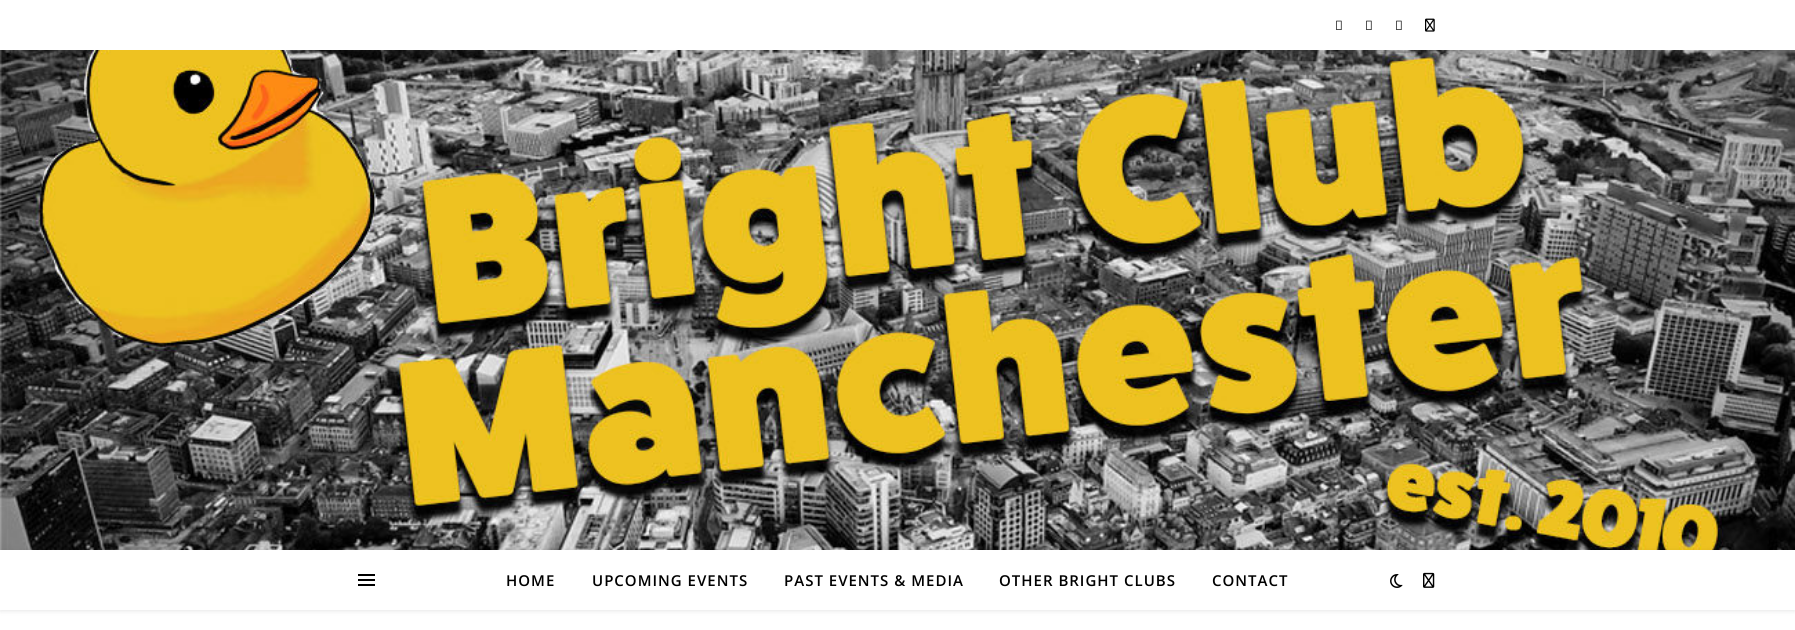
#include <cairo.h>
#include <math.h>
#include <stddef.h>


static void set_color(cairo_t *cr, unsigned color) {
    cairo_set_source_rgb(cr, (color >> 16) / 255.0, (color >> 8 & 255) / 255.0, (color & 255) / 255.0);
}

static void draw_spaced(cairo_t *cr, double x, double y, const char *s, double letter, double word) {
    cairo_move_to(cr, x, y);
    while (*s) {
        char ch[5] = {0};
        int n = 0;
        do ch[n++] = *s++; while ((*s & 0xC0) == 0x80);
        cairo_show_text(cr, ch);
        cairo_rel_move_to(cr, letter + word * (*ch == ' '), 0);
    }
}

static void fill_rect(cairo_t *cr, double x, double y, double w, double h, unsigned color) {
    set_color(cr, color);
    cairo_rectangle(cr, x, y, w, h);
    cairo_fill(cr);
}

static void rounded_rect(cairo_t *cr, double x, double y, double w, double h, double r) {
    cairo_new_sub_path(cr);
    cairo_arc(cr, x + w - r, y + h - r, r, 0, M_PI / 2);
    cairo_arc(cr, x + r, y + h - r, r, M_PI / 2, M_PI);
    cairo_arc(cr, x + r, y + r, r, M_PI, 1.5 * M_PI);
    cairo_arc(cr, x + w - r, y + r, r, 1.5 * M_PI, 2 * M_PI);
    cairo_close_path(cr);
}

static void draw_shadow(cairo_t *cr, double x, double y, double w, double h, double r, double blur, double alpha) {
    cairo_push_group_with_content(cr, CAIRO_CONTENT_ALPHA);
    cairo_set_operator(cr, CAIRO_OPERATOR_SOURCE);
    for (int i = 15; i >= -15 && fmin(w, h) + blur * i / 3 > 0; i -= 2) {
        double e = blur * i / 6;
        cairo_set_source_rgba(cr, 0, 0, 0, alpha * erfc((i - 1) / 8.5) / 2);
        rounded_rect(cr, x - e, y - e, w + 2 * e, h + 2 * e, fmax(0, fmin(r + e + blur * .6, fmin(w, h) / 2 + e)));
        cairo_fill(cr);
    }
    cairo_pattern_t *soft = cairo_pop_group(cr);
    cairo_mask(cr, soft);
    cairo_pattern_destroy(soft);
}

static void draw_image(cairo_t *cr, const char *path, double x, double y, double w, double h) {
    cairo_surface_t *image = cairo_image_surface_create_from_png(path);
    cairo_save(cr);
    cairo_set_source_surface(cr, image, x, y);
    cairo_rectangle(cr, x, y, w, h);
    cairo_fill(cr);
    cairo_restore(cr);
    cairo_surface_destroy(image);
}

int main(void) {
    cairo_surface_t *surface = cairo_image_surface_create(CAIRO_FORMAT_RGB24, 1795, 630);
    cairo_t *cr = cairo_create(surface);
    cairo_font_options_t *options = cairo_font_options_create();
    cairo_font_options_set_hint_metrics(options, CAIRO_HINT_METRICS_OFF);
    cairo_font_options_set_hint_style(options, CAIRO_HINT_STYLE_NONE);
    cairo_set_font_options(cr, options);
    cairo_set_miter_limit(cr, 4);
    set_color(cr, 0xFFFFFF);
    cairo_paint(cr);
    draw_image(cr, "assets/img1.png", 1336, 20, 6, 10);
    draw_image(cr, "assets/img1.png", 1366, 20, 6, 10);
    draw_image(cr, "assets/img1.png", 1396, 20, 6, 10);
    draw_image(cr, "assets/img2.png", 1425, 18, 10, 14);
    draw_image(cr, "assets/img3.png", 0, 50, 1795, 500);
    cairo_save(cr);
    cairo_set_fill_rule(cr, CAIRO_FILL_RULE_EVEN_ODD);
    cairo_new_path(cr);
    cairo_move_to(cr, 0, 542);
    cairo_line_to(cr, 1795, 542);
    cairo_line_to(cr, 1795, 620);
    cairo_line_to(cr, 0, 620);
    cairo_close_path(cr);
    cairo_move_to(cr, 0, 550);
    cairo_line_to(cr, 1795, 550);
    cairo_line_to(cr, 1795, 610);
    cairo_line_to(cr, 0, 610);
    cairo_close_path(cr);
    cairo_clip(cr);
    set_color(cr, 0x000000);
    draw_shadow(cr, 0, 551, 1795, 60, 0, 2.5, 0.1);
    cairo_restore(cr);
    fill_rect(cr, 358, 574, 17, 2, 0x000000);
    fill_rect(cr, 358, 579, 17, 2, 0x000000);
    fill_rect(cr, 358, 584, 17, 2, 0x000000);
    cairo_select_font_face(cr, "Open Sans SemiBold", CAIRO_FONT_SLANT_NORMAL, CAIRO_FONT_WEIGHT_NORMAL);
    cairo_set_font_size(cr, 15);
    draw_spaced(cr, 506, 586, "HOME", 1, 0);
    draw_spaced(cr, 592, 586, "UPCOMING EVENTS", 1, 0);
    draw_spaced(cr, 784, 586, "PAST EVENTS & MEDIA", 1, 0);
    draw_spaced(cr, 999, 586, "OTHER BRIGHT CLUBS", 1, 0);
    draw_spaced(cr, 1212, 586, "CONTACT", 1, 0);
    draw_image(cr, "assets/img4.png", 1390, 574, 13, 14);
    draw_image(cr, "assets/img5.png", 1423, 572, 12, 16);
    cairo_surface_write_to_png(surface, "output.png");
    cairo_font_options_destroy(options);
    cairo_destroy(cr);
    cairo_surface_destroy(surface);
    return 0;
}
